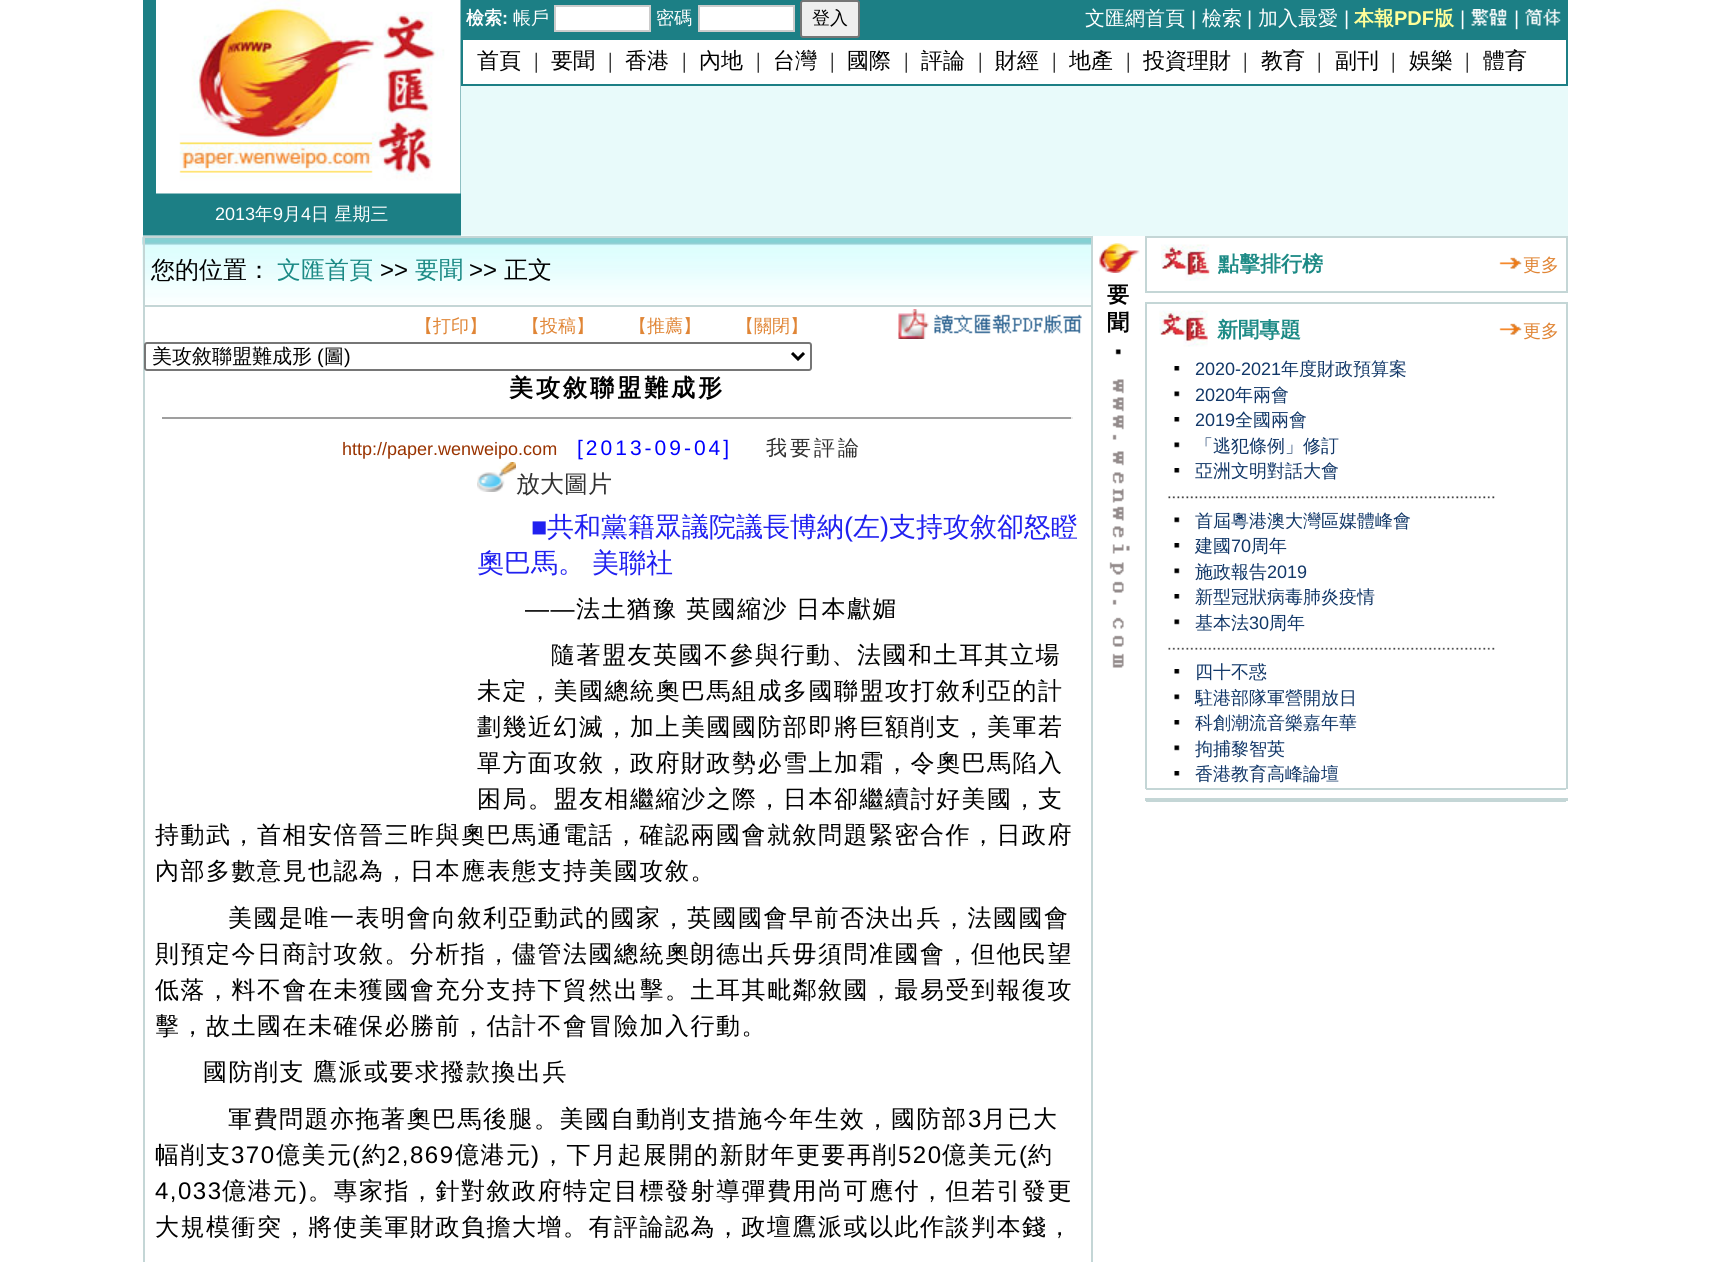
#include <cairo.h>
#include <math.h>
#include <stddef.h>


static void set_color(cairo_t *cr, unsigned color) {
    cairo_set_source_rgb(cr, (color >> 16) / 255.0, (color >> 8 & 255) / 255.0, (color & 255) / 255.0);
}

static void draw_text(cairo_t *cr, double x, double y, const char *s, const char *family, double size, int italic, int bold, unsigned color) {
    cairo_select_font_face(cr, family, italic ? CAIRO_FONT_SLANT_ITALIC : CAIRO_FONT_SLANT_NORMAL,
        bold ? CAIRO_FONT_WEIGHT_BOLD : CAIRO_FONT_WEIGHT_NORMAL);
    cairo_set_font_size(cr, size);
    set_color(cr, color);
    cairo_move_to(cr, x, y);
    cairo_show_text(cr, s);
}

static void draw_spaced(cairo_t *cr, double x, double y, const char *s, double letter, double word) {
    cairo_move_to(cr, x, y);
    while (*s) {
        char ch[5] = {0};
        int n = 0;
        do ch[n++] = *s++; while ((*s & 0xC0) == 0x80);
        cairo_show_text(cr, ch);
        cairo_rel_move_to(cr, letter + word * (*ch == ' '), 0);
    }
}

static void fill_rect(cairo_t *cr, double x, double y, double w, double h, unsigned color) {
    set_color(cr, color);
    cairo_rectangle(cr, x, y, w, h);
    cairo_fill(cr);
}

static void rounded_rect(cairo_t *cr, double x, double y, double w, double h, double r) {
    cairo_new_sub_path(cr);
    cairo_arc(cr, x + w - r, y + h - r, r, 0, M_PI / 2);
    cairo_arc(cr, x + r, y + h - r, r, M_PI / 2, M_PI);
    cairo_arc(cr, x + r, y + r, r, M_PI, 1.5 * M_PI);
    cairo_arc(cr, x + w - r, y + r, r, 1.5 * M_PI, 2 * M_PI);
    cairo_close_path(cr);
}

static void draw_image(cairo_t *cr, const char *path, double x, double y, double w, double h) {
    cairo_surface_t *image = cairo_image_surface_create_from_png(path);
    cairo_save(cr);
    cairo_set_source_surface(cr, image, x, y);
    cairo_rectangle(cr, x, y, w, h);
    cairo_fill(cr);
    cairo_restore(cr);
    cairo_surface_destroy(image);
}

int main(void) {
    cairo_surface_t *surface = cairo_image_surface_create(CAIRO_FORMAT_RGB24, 1709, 1262);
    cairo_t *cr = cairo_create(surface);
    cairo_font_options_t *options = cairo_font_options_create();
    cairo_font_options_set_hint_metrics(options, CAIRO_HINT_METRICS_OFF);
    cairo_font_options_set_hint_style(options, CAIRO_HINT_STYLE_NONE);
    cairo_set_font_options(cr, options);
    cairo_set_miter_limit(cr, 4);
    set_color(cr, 0xFFFFFF);
    cairo_paint(cr);
    fill_rect(cr, 143, 0, 318, 236, 0x1C7F85);
    draw_image(cr, "assets/img1.png", 156, 0, 305, 194);
    fill_rect(cr, 461, 86, 1107, 150, 0xE8FAFA);
    fill_rect(cr, 461, 0, 1107, 38, 0x1C7F85);
    draw_text(cr, 466, 24, "檢索", "WenQuanYi Zen Hei", 18, 0, 1, 0xFFFFFF);
    draw_text(cr, 502, 24, ":", "Liberation Sans", 18, 0, 1, 0xFFFFFF);
    draw_text(cr, 513, 24, "帳戶", "WenQuanYi Zen Hei Medium", 18, 0, 0, 0xFFFFFF);
    cairo_rectangle(cr, 555, 6, 95, 25);
    cairo_fill_preserve(cr);
    set_color(cr, 0xCCCCCC);
    cairo_stroke(cr);
    draw_text(cr, 656, 24, "密碼", "WenQuanYi Zen Hei Medium", 18, 0, 0, 0xFFFFFF);
    cairo_rectangle(cr, 699, 6, 95, 25);
    cairo_fill_preserve(cr);
    set_color(cr, 0xCCCCCC);
    cairo_stroke(cr);
    set_color(cr, 0xEFEFEF);
    rounded_rect(cr, 801, 1, 58, 36, 2);
    cairo_fill_preserve(cr);
    set_color(cr, 0x767676);
    cairo_stroke(cr);
    draw_text(cr, 812, 24, "登入", "WenQuanYi Zen Hei Medium", 18, 0, 0, 0x000000);
    draw_text(cr, 1085, 25, "文匯網首頁", "WenQuanYi Zen Hei Medium", 20, 0, 0, 0xFFFFFF);
    draw_text(cr, 1191, 25, "|", "Liberation Sans", 20, 0, 0, 0xFFFFFF);
    draw_text(cr, 1202, 25, "檢索", "WenQuanYi Zen Hei Medium", 20, 0, 0, 0xFFFFFF);
    draw_text(cr, 1247, 25, "|", "Liberation Sans", 20, 0, 0, 0xFFFFFF);
    draw_text(cr, 1258, 25, "加入最愛", "WenQuanYi Zen Hei Medium", 20, 0, 0, 0xFFFFFF);
    draw_text(cr, 1344, 25, "|", "Liberation Sans", 20, 0, 0, 0xFFFFFF);
    draw_text(cr, 1354, 25, "本報", "WenQuanYi Zen Hei", 20, 0, 1, 0xFFFF99);
    draw_text(cr, 1394, 25, "PDF", "Liberation Sans", 20, 0, 1, 0xFFFF99);
    draw_text(cr, 1434, 25, "版", "WenQuanYi Zen Hei", 20, 0, 1, 0xFFFF99);
    draw_text(cr, 1460, 25, "|", "Liberation Sans", 20, 0, 0, 0xFFFFFF);
    draw_image(cr, "assets/img2.png", 1471, 9, 36, 17);
    draw_text(cr, 1514, 25, "|", "Liberation Sans", 20, 0, 0, 0xFFFFFF);
    draw_image(cr, "assets/img3.png", 1525, 9, 36, 17);
    cairo_rectangle(cr, 462, 39, 1105, 46);
    set_color(cr, 0x1C7F85);
    cairo_stroke(cr);
    draw_text(cr, 477, 68, "首頁", "WenQuanYi Zen Hei Medium", 22, 0, 0, 0x000000);
    draw_text(cr, 534, 68, "|", "Liberation Serif", 22, 0, 0, 0x000000);
    draw_text(cr, 551, 68, "要聞", "WenQuanYi Zen Hei Medium", 22, 0, 0, 0x000000);
    draw_text(cr, 608, 68, "|", "Liberation Serif", 22, 0, 0, 0x000000);
    draw_text(cr, 625, 68, "香港", "WenQuanYi Zen Hei Medium", 22, 0, 0, 0x000000);
    draw_text(cr, 682, 68, "|", "Liberation Serif", 22, 0, 0, 0x000000);
    draw_text(cr, 699, 68, "內地", "WenQuanYi Zen Hei Medium", 22, 0, 0, 0x000000);
    draw_text(cr, 756, 68, "|", "Liberation Serif", 22, 0, 0, 0x000000);
    draw_text(cr, 773, 68, "台灣", "WenQuanYi Zen Hei Medium", 22, 0, 0, 0x000000);
    draw_text(cr, 830, 68, "|", "Liberation Serif", 22, 0, 0, 0x000000);
    draw_text(cr, 847, 68, "國際", "WenQuanYi Zen Hei Medium", 22, 0, 0, 0x000000);
    draw_text(cr, 904, 68, "|", "Liberation Serif", 22, 0, 0, 0x000000);
    draw_text(cr, 921, 68, "評論", "WenQuanYi Zen Hei Medium", 22, 0, 0, 0x000000);
    draw_text(cr, 978, 68, "|", "Liberation Serif", 22, 0, 0, 0x000000);
    draw_text(cr, 995, 68, "財經", "WenQuanYi Zen Hei Medium", 22, 0, 0, 0x000000);
    draw_text(cr, 1052, 68, "|", "Liberation Serif", 22, 0, 0, 0x000000);
    draw_text(cr, 1069, 68, "地產", "WenQuanYi Zen Hei Medium", 22, 0, 0, 0x000000);
    draw_text(cr, 1126, 68, "|", "Liberation Serif", 22, 0, 0, 0x000000);
    draw_text(cr, 1143, 68, "投資理財", "WenQuanYi Zen Hei Medium", 22, 0, 0, 0x000000);
    draw_text(cr, 1243, 68, "|", "Liberation Serif", 22, 0, 0, 0x000000);
    draw_text(cr, 1261, 68, "教育", "WenQuanYi Zen Hei Medium", 22, 0, 0, 0x000000);
    draw_text(cr, 1317, 68, "|", "Liberation Serif", 22, 0, 0, 0x000000);
    draw_text(cr, 1335, 68, "副刊", "WenQuanYi Zen Hei Medium", 22, 0, 0, 0x000000);
    draw_text(cr, 1391, 68, "|", "Liberation Serif", 22, 0, 0, 0x000000);
    draw_text(cr, 1409, 68, "娛樂", "WenQuanYi Zen Hei Medium", 22, 0, 0, 0x000000);
    draw_text(cr, 1465, 68, "|", "Liberation Serif", 22, 0, 0, 0x000000);
    draw_text(cr, 1483, 68, "體育", "WenQuanYi Zen Hei Medium", 22, 0, 0, 0x000000);
    draw_text(cr, 215, 220, "2013", "Liberation Sans", 18, 0, 0, 0xFFFFFF);
    draw_text(cr, 255, 220, "年", "WenQuanYi Zen Hei Medium", 18, 0, 0, 0xFFFFFF);
    draw_text(cr, 273, 220, "9", "Liberation Sans", 18, 0, 0, 0xFFFFFF);
    draw_text(cr, 283, 220, "月", "WenQuanYi Zen Hei Medium", 18, 0, 0, 0xFFFFFF);
    draw_text(cr, 301, 220, "4", "Liberation Sans", 18, 0, 0, 0xFFFFFF);
    draw_text(cr, 311, 220, "日 星期三", "WenQuanYi Zen Hei Medium", 18, 0, 0, 0xFFFFFF);
    draw_image(cr, "assets/img4.png", 142, 235, 950, 69);
    fill_rect(cr, 143, 236, 949, 2, 0xC4D6D6);
    fill_rect(cr, 1091, 236, 2, 69, 0xC4D6D6);
    fill_rect(cr, 143, 236, 2, 69, 0xC4D6D6);
    draw_text(cr, 151, 278, "您的位置：", "WenQuanYi Zen Hei Medium", 24, 0, 0, 0x000000);
    draw_text(cr, 277, 278, "文匯首頁", "WenQuanYi Zen Hei Medium", 24, 0, 0, 0x1C8A85);
    draw_text(cr, 380, 278, ">>", "Liberation Sans", 24, 0, 0, 0x000000);
    draw_text(cr, 415, 278, "要聞", "WenQuanYi Zen Hei Medium", 24, 0, 0, 0x1C8A85);
    draw_text(cr, 469, 278, ">>", "Liberation Sans", 24, 0, 0, 0x000000);
    draw_text(cr, 504, 278, "正文", "WenQuanYi Zen Hei Medium", 24, 0, 0, 0x000000);
    fill_rect(cr, 143, 305, 949, 2, 0xC4D6D6);
    fill_rect(cr, 1091, 305, 2, 957, 0xC4D6D6);
    fill_rect(cr, 143, 305, 2, 957, 0xC4D6D6);
    draw_text(cr, 415, 332, "【打印】", "WenQuanYi Zen Hei Medium", 18, 0, 0, 0xE08535);
    draw_text(cr, 522, 332, "【投稿】", "WenQuanYi Zen Hei Medium", 18, 0, 0, 0xE08535);
    draw_text(cr, 629, 332, "【推薦】", "WenQuanYi Zen Hei Medium", 18, 0, 0, 0xE08535);
    draw_text(cr, 736, 332, "【關閉】", "WenQuanYi Zen Hei Medium", 18, 0, 0, 0xE08535);
    draw_image(cr, "assets/img5.png", 898, 309, 184, 30);
    set_color(cr, 0xFFFFFF);
    rounded_rect(cr, 145, 343, 666, 27, 2);
    cairo_fill_preserve(cr);
    set_color(cr, 0x767676);
    cairo_stroke(cr);
    cairo_new_path(cr);
    cairo_move_to(cr, 792, 353);
    cairo_line_to(cr, 798, 359);
    cairo_line_to(cr, 804, 353);
    set_color(cr, 0x000000);
    cairo_set_line_width(cr, 3);
    cairo_stroke(cr);
    draw_text(cr, 152, 363, "美攻敘聯盟難成形", "WenQuanYi Zen Hei Medium", 20, 0, 0, 0x000000);
    draw_text(cr, 317, 363, "(", "Liberation Sans", 20, 0, 0, 0x000000);
    draw_text(cr, 324, 363, "圖", "WenQuanYi Zen Hei Medium", 20, 0, 0, 0x000000);
    draw_text(cr, 344, 363, ")", "Liberation Sans", 20, 0, 0, 0x000000);
    cairo_select_font_face(cr, "WenQuanYi Zen Hei", CAIRO_FONT_SLANT_NORMAL, CAIRO_FONT_WEIGHT_BOLD);
    cairo_set_font_size(cr, 24);
    draw_spaced(cr, 509, 396, "美攻敘聯盟難成形", 3, 0);
    fill_rect(cr, 162, 417, 911, 2, 0x9F9F9F);
    fill_rect(cr, 1071, 417, 2, 2, 0xEEEEEE);
    draw_text(cr, 342, 455, "http://paper.wenweipo.com", "Liberation Sans", 18, 0, 0, 0x993300);
    cairo_set_font_size(cr, 21);
    set_color(cr, 0x0000FF);
    draw_spaced(cr, 577, 455, "[2013-09-04]", 3, 0);
    cairo_select_font_face(cr, "WenQuanYi Zen Hei Medium", CAIRO_FONT_SLANT_NORMAL, CAIRO_FONT_WEIGHT_NORMAL);
    set_color(cr, 0x313131);
    draw_spaced(cr, 766, 455, "我要評論", 3, 0);
    draw_image(cr, "assets/img6.png", 477, 462, 39, 30);
    draw_text(cr, 516, 492, "放大圖片", "WenQuanYi Zen Hei Medium", 24, 0, 0, 0x313131);
    draw_text(cr, 531, 536, "■", "Liberation Sans", 27, 0, 0, 0x2020F0);
    draw_text(cr, 547, 536, "共和黨籍眾議院議長博納", "WenQuanYi Zen Hei Medium", 27, 0, 0, 0x2020F0);
    draw_text(cr, 844, 536, "(", "Liberation Sans", 27, 0, 0, 0x2020F0);
    draw_text(cr, 853, 536, "左", "WenQuanYi Zen Hei Medium", 27, 0, 0, 0x2020F0);
    draw_text(cr, 880, 536, ")", "Liberation Sans", 27, 0, 0, 0x2020F0);
    draw_text(cr, 889, 536, "支持攻敘卻怒瞪", "WenQuanYi Zen Hei Medium", 27, 0, 0, 0x2020F0);
    draw_spaced(cr, 477, 572, "奧巴馬。 美聯社", 0, -1);
    cairo_select_font_face(cr, "Liberation Sans", CAIRO_FONT_SLANT_NORMAL, CAIRO_FONT_WEIGHT_NORMAL);
    cairo_set_font_size(cr, 24);
    set_color(cr, 0x000000);
    draw_spaced(cr, 525, 617, "——", 1.5, 0);
    cairo_select_font_face(cr, "WenQuanYi Zen Hei Medium", CAIRO_FONT_SLANT_NORMAL, CAIRO_FONT_WEIGHT_NORMAL);
    draw_spaced(cr, 576, 617, "法土猶豫", 1.5, 0);
    draw_spaced(cr, 686, 617, "英國縮沙", 1.5, 0);
    draw_spaced(cr, 796, 617, "日本獻媚", 1.5, 0);
    draw_spaced(cr, 551, 663, "隨著盟友英國不參與行動、法國和土耳其立場", 1.5, 0);
    draw_spaced(cr, 477, 699, "未定，美國總統奧巴馬組成多國聯盟攻打敘利亞的計", 1.5, 0);
    draw_spaced(cr, 477, 735, "劃幾近幻滅，加上美國國防部即將巨額削支，美軍若", 1.5, 0);
    draw_spaced(cr, 477, 771, "單方面攻敘，政府財政勢必雪上加霜，令奧巴馬陷入", 1.5, 0);
    draw_spaced(cr, 477, 807, "困局。盟友相繼縮沙之際，日本卻繼續討好美國，支", 1.5, 0);
    draw_spaced(cr, 155, 843, "持動武，首相安倍晉三昨與奧巴馬通電話，確認兩國會就敘問題緊密合作，日政府", 1.5, 0);
    draw_spaced(cr, 155, 879, "內部多數意見也認為，日本應表態支持美國攻敘。", 1.5, 0);
    draw_spaced(cr, 228, 926, "美國是唯一表明會向敘利亞動武的國家，英國國會早前否決出兵，法國國會", 1.5, 0);
    draw_spaced(cr, 155, 962, "則預定今日商討攻敘。分析指，儘管法國總統奧朗德出兵毋須問准國會，但他民望", 1.5, 0);
    draw_spaced(cr, 155, 998, "低落，料不會在未獲國會充分支持下貿然出擊。土耳其毗鄰敘國，最易受到報復攻", 1.5, 0);
    draw_spaced(cr, 155, 1034, "擊，故土國在未確保必勝前，估計不會冒險加入行動。", 1.5, 0);
    draw_spaced(cr, 203, 1080, "國防削支", 1.5, 0);
    draw_spaced(cr, 313, 1080, "鷹派或要求撥款換出兵", 1.5, 0);
    draw_spaced(cr, 228, 1127, "軍費問題亦拖著奧巴馬後腿。美國自動削支措施今年生效，國防部", 1.5, 0);
    cairo_select_font_face(cr, "Liberation Sans", CAIRO_FONT_SLANT_NORMAL, CAIRO_FONT_WEIGHT_NORMAL);
    draw_spaced(cr, 968, 1127, "3", 1.5, 0);
    cairo_select_font_face(cr, "WenQuanYi Zen Hei Medium", CAIRO_FONT_SLANT_NORMAL, CAIRO_FONT_WEIGHT_NORMAL);
    draw_spaced(cr, 982, 1127, "月已大", 1.5, 0);
    draw_spaced(cr, 155, 1163, "幅削支", 1.5, 0);
    cairo_select_font_face(cr, "Liberation Sans", CAIRO_FONT_SLANT_NORMAL, CAIRO_FONT_WEIGHT_NORMAL);
    draw_spaced(cr, 231, 1163, "370", 1.5, 0);
    cairo_select_font_face(cr, "WenQuanYi Zen Hei Medium", CAIRO_FONT_SLANT_NORMAL, CAIRO_FONT_WEIGHT_NORMAL);
    draw_spaced(cr, 276, 1163, "億美元", 1.5, 0);
    cairo_select_font_face(cr, "Liberation Sans", CAIRO_FONT_SLANT_NORMAL, CAIRO_FONT_WEIGHT_NORMAL);
    draw_spaced(cr, 352, 1163, "(", 1.5, 0);
    cairo_select_font_face(cr, "WenQuanYi Zen Hei Medium", CAIRO_FONT_SLANT_NORMAL, CAIRO_FONT_WEIGHT_NORMAL);
    draw_spaced(cr, 362, 1163, "約", 1.5, 0);
    cairo_select_font_face(cr, "Liberation Sans", CAIRO_FONT_SLANT_NORMAL, CAIRO_FONT_WEIGHT_NORMAL);
    draw_spaced(cr, 387, 1163, "2,869", 1.5, 0);
    cairo_select_font_face(cr, "WenQuanYi Zen Hei Medium", CAIRO_FONT_SLANT_NORMAL, CAIRO_FONT_WEIGHT_NORMAL);
    draw_spaced(cr, 455, 1163, "億港元", 1.5, 0);
    cairo_select_font_face(cr, "Liberation Sans", CAIRO_FONT_SLANT_NORMAL, CAIRO_FONT_WEIGHT_NORMAL);
    draw_spaced(cr, 531, 1163, ")", 1.5, 0);
    cairo_select_font_face(cr, "WenQuanYi Zen Hei Medium", CAIRO_FONT_SLANT_NORMAL, CAIRO_FONT_WEIGHT_NORMAL);
    draw_spaced(cr, 541, 1163, "，下月起展開的新財年更要再削", 1.5, 0);
    cairo_select_font_face(cr, "Liberation Sans", CAIRO_FONT_SLANT_NORMAL, CAIRO_FONT_WEIGHT_NORMAL);
    draw_spaced(cr, 898, 1163, "520", 1.5, 0);
    cairo_select_font_face(cr, "WenQuanYi Zen Hei Medium", CAIRO_FONT_SLANT_NORMAL, CAIRO_FONT_WEIGHT_NORMAL);
    draw_spaced(cr, 942, 1163, "億美元", 1.5, 0);
    cairo_select_font_face(cr, "Liberation Sans", CAIRO_FONT_SLANT_NORMAL, CAIRO_FONT_WEIGHT_NORMAL);
    draw_spaced(cr, 1019, 1163, "(", 1.5, 0);
    cairo_select_font_face(cr, "WenQuanYi Zen Hei Medium", CAIRO_FONT_SLANT_NORMAL, CAIRO_FONT_WEIGHT_NORMAL);
    draw_spaced(cr, 1028, 1163, "約", 1.5, 0);
    cairo_select_font_face(cr, "Liberation Sans", CAIRO_FONT_SLANT_NORMAL, CAIRO_FONT_WEIGHT_NORMAL);
    draw_spaced(cr, 155, 1199, "4,033", 1.5, 0);
    cairo_select_font_face(cr, "WenQuanYi Zen Hei Medium", CAIRO_FONT_SLANT_NORMAL, CAIRO_FONT_WEIGHT_NORMAL);
    draw_spaced(cr, 222, 1199, "億港元", 1.5, 0);
    cairo_select_font_face(cr, "Liberation Sans", CAIRO_FONT_SLANT_NORMAL, CAIRO_FONT_WEIGHT_NORMAL);
    draw_spaced(cr, 299, 1199, ")", 1.5, 0);
    cairo_select_font_face(cr, "WenQuanYi Zen Hei Medium", CAIRO_FONT_SLANT_NORMAL, CAIRO_FONT_WEIGHT_NORMAL);
    draw_spaced(cr, 308, 1199, "。專家指，針對敘政府特定目標發射導彈費用尚可應付，但若引發更", 1.5, 0);
    draw_spaced(cr, 155, 1235, "大規模衝突，將使美軍財政負擔大增。有評論認為，政壇鷹派或以此作談判本錢，", 1.5, 0);
    draw_image(cr, "assets/img7.png", 1099, 243, 41, 30);
    draw_text(cr, 1107, 302, "要", "WenQuanYi Zen Hei", 22, 0, 1, 0x000000);
    draw_text(cr, 1107, 330, "聞", "WenQuanYi Zen Hei", 22, 0, 1, 0x000000);
    draw_image(cr, "assets/img8.png", 1109, 349, 21, 319);
    fill_rect(cr, 1145, 236, 423, 2, 0xC4D6D6);
    fill_rect(cr, 1566, 236, 2, 57, 0xC4D6D6);
    fill_rect(cr, 1145, 236, 2, 57, 0xC4D6D6);
    draw_image(cr, "assets/img9.png", 1161, 244, 49, 37);
    draw_text(cr, 1218, 271, "點擊排行榜", "WenQuanYi Zen Hei", 21, 0, 1, 0x1C8A85);
    draw_image(cr, "assets/img10.png", 1499, 257, 23, 12);
    draw_text(cr, 1523, 271, "更多", "WenQuanYi Zen Hei Medium", 18, 0, 0, 0xE08535);
    fill_rect(cr, 1146, 291, 420, 2, 0xC4D6D6);
    fill_rect(cr, 1145, 302, 423, 2, 0xC4D6D6);
    fill_rect(cr, 1566, 302, 2, 487, 0xC4D6D6);
    fill_rect(cr, 1145, 302, 2, 487, 0xC4D6D6);
    draw_image(cr, "assets/img11.png", 1159, 310, 49, 37);
    draw_text(cr, 1217, 337, "新聞專題", "WenQuanYi Zen Hei", 21, 0, 1, 0x1C8A85);
    draw_image(cr, "assets/img10.png", 1499, 323, 23, 12);
    draw_text(cr, 1523, 337, "更多", "WenQuanYi Zen Hei Medium", 18, 0, 0, 0xE08535);
    fill_rect(cr, 1146, 788, 420, 2, 0xC4D6D6);
    draw_image(cr, "assets/img12.png", 1174, 366, 6, 5);
    draw_text(cr, 1195, 375, "2020-2021", "Liberation Sans", 18, 0, 0, 0x103667);
    draw_text(cr, 1281, 375, "年度財政預算案", "WenQuanYi Zen Hei Medium", 18, 0, 0, 0x103667);
    draw_image(cr, "assets/img13.png", 1174, 391, 6, 6);
    draw_text(cr, 1195, 401, "2020", "Liberation Sans", 18, 0, 0, 0x103667);
    draw_text(cr, 1235, 401, "年兩會", "WenQuanYi Zen Hei Medium", 18, 0, 0, 0x103667);
    draw_image(cr, "assets/img12.png", 1174, 417, 6, 5);
    draw_text(cr, 1195, 426, "2019", "Liberation Sans", 18, 0, 0, 0x103667);
    draw_text(cr, 1235, 426, "全國兩會", "WenQuanYi Zen Hei Medium", 18, 0, 0, 0x103667);
    draw_image(cr, "assets/img13.png", 1174, 442, 6, 6);
    draw_text(cr, 1195, 452, "「逃犯條例」修訂", "WenQuanYi Zen Hei Medium", 18, 0, 0, 0x103667);
    draw_image(cr, "assets/img12.png", 1174, 468, 6, 5);
    draw_text(cr, 1195, 477, "亞洲文明對話大會", "WenQuanYi Zen Hei Medium", 18, 0, 0, 0x103667);
    draw_image(cr, "assets/img14.png", 1168, 496, 327, 3);
    draw_image(cr, "assets/img13.png", 1174, 517, 6, 6);
    draw_text(cr, 1195, 527, "首屆粵港澳大灣區媒體峰會", "WenQuanYi Zen Hei Medium", 18, 0, 0, 0x103667);
    draw_image(cr, "assets/img12.png", 1174, 543, 6, 5);
    draw_text(cr, 1195, 552, "建國", "WenQuanYi Zen Hei Medium", 18, 0, 0, 0x103667);
    draw_text(cr, 1231, 552, "70", "Liberation Sans", 18, 0, 0, 0x103667);
    draw_text(cr, 1251, 552, "周年", "WenQuanYi Zen Hei Medium", 18, 0, 0, 0x103667);
    draw_image(cr, "assets/img13.png", 1174, 568, 6, 6);
    draw_text(cr, 1195, 578, "施政報告", "WenQuanYi Zen Hei Medium", 18, 0, 0, 0x103667);
    draw_text(cr, 1267, 578, "2019", "Liberation Sans", 18, 0, 0, 0x103667);
    draw_image(cr, "assets/img12.png", 1174, 594, 6, 5);
    draw_text(cr, 1195, 603, "新型冠狀病毒肺炎疫情", "WenQuanYi Zen Hei Medium", 18, 0, 0, 0x103667);
    draw_image(cr, "assets/img13.png", 1174, 619, 6, 6);
    draw_text(cr, 1195, 629, "基本法", "WenQuanYi Zen Hei Medium", 18, 0, 0, 0x103667);
    draw_text(cr, 1249, 629, "30", "Liberation Sans", 18, 0, 0, 0x103667);
    draw_text(cr, 1269, 629, "周年", "WenQuanYi Zen Hei Medium", 18, 0, 0, 0x103667);
    draw_image(cr, "assets/img15.png", 1168, 647, 327, 3);
    draw_image(cr, "assets/img12.png", 1174, 669, 6, 5);
    draw_text(cr, 1195, 678, "四十不惑", "WenQuanYi Zen Hei Medium", 18, 0, 0, 0x103667);
    draw_image(cr, "assets/img13.png", 1174, 694, 6, 6);
    draw_text(cr, 1195, 704, "駐港部隊軍營開放日", "WenQuanYi Zen Hei Medium", 18, 0, 0, 0x103667);
    draw_image(cr, "assets/img12.png", 1174, 720, 6, 5);
    draw_text(cr, 1195, 729, "科創潮流音樂嘉年華", "WenQuanYi Zen Hei Medium", 18, 0, 0, 0x103667);
    draw_image(cr, "assets/img13.png", 1174, 745, 6, 6);
    draw_text(cr, 1195, 755, "拘捕黎智英", "WenQuanYi Zen Hei Medium", 18, 0, 0, 0x103667);
    draw_image(cr, "assets/img12.png", 1174, 771, 6, 5);
    draw_text(cr, 1195, 780, "香港教育高峰論壇", "WenQuanYi Zen Hei Medium", 18, 0, 0, 0x103667);
    fill_rect(cr, 1145, 798, 423, 2, 0xC4D6D6);
    fill_rect(cr, 1566, 798, 2, 3, 0xC4D6D6);
    fill_rect(cr, 1145, 798, 2, 3, 0xC4D6D6);
    fill_rect(cr, 1146, 800, 420, 2, 0xC4D6D6);
    cairo_surface_write_to_png(surface, "output.png");
    cairo_font_options_destroy(options);
    cairo_destroy(cr);
    cairo_surface_destroy(surface);
    return 0;
}
